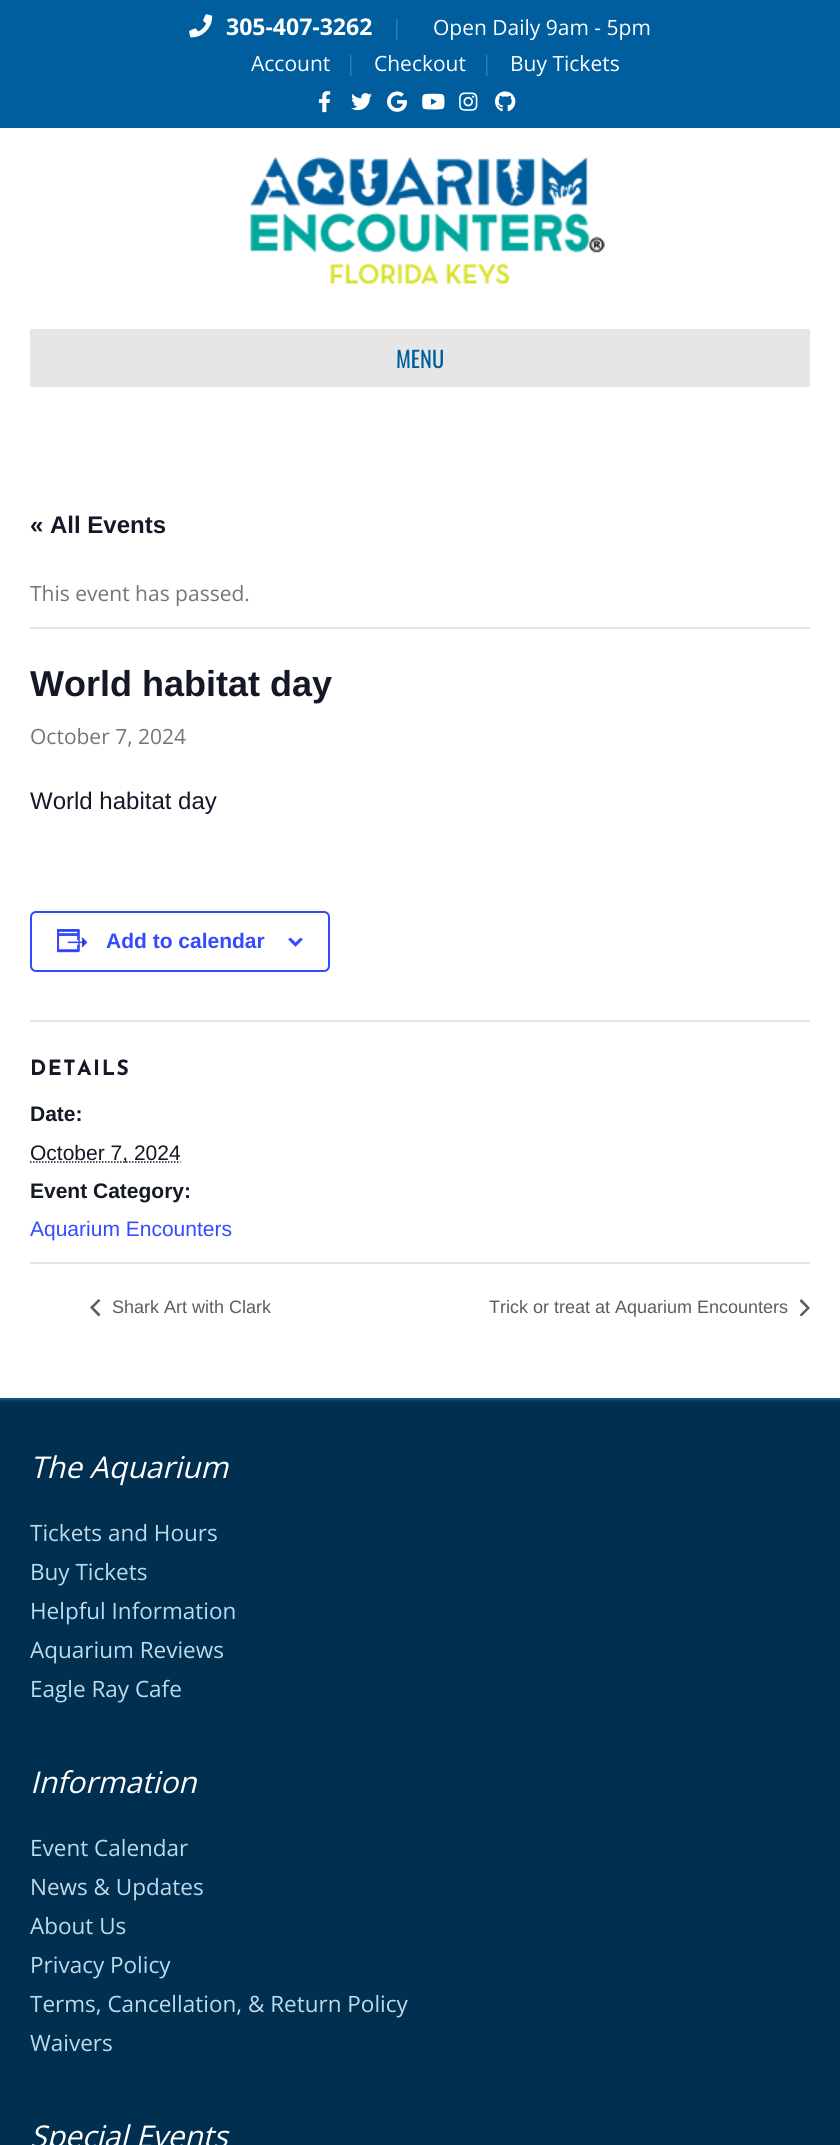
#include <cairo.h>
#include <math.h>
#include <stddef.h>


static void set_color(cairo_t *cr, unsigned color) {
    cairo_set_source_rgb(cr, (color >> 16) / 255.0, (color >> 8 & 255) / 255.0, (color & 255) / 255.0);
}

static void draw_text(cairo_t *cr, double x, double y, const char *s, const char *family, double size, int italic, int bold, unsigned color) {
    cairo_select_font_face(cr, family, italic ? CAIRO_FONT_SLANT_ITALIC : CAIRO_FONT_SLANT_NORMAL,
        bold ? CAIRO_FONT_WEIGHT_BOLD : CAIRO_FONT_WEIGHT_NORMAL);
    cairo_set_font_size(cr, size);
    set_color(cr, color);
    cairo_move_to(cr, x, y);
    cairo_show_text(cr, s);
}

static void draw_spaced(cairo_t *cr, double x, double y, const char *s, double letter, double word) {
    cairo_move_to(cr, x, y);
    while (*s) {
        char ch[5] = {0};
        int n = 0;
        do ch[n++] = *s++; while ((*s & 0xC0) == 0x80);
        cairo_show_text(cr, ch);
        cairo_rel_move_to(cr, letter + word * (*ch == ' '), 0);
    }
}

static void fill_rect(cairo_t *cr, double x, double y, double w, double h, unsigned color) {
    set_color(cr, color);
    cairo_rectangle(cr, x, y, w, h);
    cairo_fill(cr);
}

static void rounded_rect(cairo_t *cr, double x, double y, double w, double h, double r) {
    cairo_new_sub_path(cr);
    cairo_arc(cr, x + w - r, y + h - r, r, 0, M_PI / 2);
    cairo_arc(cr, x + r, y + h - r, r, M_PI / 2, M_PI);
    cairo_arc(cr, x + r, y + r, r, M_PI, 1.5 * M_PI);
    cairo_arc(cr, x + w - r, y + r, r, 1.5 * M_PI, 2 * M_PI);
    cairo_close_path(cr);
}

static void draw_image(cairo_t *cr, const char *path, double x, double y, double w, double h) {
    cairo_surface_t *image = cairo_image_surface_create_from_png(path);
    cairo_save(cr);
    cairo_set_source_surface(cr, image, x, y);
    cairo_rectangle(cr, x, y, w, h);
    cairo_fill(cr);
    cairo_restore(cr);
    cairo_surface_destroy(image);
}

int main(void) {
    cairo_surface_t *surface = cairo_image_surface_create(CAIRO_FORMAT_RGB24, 840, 2145);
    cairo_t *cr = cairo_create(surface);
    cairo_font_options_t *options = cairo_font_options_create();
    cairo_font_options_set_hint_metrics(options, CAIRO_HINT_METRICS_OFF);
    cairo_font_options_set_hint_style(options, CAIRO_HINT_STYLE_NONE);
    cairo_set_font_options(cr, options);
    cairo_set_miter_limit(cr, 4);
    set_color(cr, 0x002F4F);
    cairo_paint(cr);
    fill_rect(cr, 0, 0, 840, 128, 0x005E9E);
    draw_image(cr, "assets/img1.png", 189, 14, 24, 24);
    draw_text(cr, 226, 35, "305-407-3262", "Open Sans", 23, 0, 1, 0xFFFFFF);
    draw_text(cr, 391, 35, "|", "Open Sans", 21, 0, 0, 0x337EB1);
    draw_text(cr, 433, 35, "Open Daily 9am - 5pm", "Open Sans", 21, 0, 0, 0xFFFFFF);
    draw_text(cr, 251, 71, "Account", "Open Sans", 21, 0, 0, 0xFFFFFF);
    draw_text(cr, 345, 71, "|", "Open Sans", 21, 0, 0, 0x337EB1);
    draw_text(cr, 374, 71, "Checkout", "Open Sans", 21, 0, 0, 0xFFFFFF);
    draw_text(cr, 481, 71, "|", "Open Sans", 21, 0, 0, 0x337EB1);
    draw_text(cr, 510, 71, "Buy Tickets", "Open Sans", 21, 0, 0, 0xFFFFFF);
    draw_image(cr, "assets/img2.png", 318, 91, 13, 22);
    draw_image(cr, "assets/img3.png", 351, 93, 21, 18);
    draw_image(cr, "assets/img4.png", 387, 91, 20, 21);
    draw_image(cr, "assets/img5.png", 422, 93, 23, 17);
    draw_image(cr, "assets/img6.png", 459, 92, 19, 19);
    draw_image(cr, "assets/img7.png", 495, 91, 21, 21);
    fill_rect(cr, 0, 128, 840, 1270, 0xFFFFFF);
    draw_image(cr, "assets/img8.png", 250, 157, 355, 127);
    fill_rect(cr, 30, 329, 780, 58, 0xE6E6E6);
    draw_text(cr, 396, 368, "MENU", "Oswald", 22.5, 0, 0, 0x005E9E);
    draw_text(cr, 30, 533, "« All Events", "Liberation Sans", 24, 0, 1, 0x141827);
    fill_rect(cr, 30, 627, 780, 2, 0xE4E4E4);
    draw_text(cr, 30, 601, "This event has passed.", "Open Sans", 21, 0, 0, 0x757575);
    draw_text(cr, 30, 696, "World habitat day", "Liberation Sans", 36, 0, 1, 0x141827);
    draw_text(cr, 30, 744, "October 7, 2024", "Open Sans", 21, 0, 0, 0x757575);
    draw_text(cr, 30, 809, "World habitat day", "Liberation Sans", 24, 0, 0, 0x141827);
    rounded_rect(cr, 31, 912, 298, 59, 5);
    set_color(cr, 0x334AFF);
    cairo_stroke(cr);
    draw_image(cr, "assets/img9.png", 57, 929, 31, 24);
    draw_text(cr, 106, 948, "Add to calendar", "Liberation Sans", 21, 0, 1, 0x334AFF);
    draw_image(cr, "assets/img10.png", 288, 938, 15, 9);
    fill_rect(cr, 30, 1020, 780, 2, 0xE4E4E4);
    cairo_select_font_face(cr, "Josefin Sans Thin", CAIRO_FONT_SLANT_NORMAL, CAIRO_FONT_WEIGHT_NORMAL);
    set_color(cr, 0x141827);
    draw_spaced(cr, 30, 1075, "DETAILS", 1.5, 0);
    draw_text(cr, 30, 1121, "Date:", "Liberation Sans", 21, 0, 1, 0x141827);
    cairo_new_path(cr);
    cairo_move_to(cr, 30, 1162);
    cairo_line_to(cr, 180.5, 1162);
    cairo_set_line_width(cr, 1.5);
    cairo_set_dash(cr, (double[]){1.5, 1.5}, 2, 0);
    cairo_stroke(cr);
    draw_text(cr, 30, 1160, "October 7, 2024", "Liberation Sans", 21, 0, 0, 0x141827);
    draw_text(cr, 30, 1198, "Event Category:", "Liberation Sans", 21, 0, 1, 0x141827);
    draw_text(cr, 30, 1236, "Aquarium Encounters", "Liberation Sans", 21, 0, 0, 0x334AFF);
    fill_rect(cr, 30, 1262, 780, 2, 0xE4E4E4);
    set_color(cr, 0x5D5D5D);
    cairo_new_path(cr);
    cairo_move_to(cr, 100.5, 1314.5);
    cairo_line_to(cr, 98.5, 1316.5);
    cairo_line_to(cr, 90, 1307.5);
    cairo_line_to(cr, 98.5, 1299);
    cairo_line_to(cr, 100.5, 1300.5);
    cairo_line_to(cr, 93.5, 1307.5);
    cairo_close_path(cr);
    cairo_fill(cr);
    draw_text(cr, 112, 1313, "Shark Art with Clark", "Liberation Sans", 18, 0, 0, 0x5D5D5D);
    draw_text(cr, 489, 1313, "Trick or treat at Aquarium Encounters", "Liberation Sans", 18, 0, 0, 0x5D5D5D);
    cairo_save(cr);
    cairo_rectangle(cr, 800, 1299, 10, 17);
    cairo_clip(cr);
    cairo_new_path(cr);
    cairo_move_to(cr, 799.5, 1301);
    cairo_line_to(cr, 801.5, 1299);
    cairo_line_to(cr, 810, 1308);
    cairo_line_to(cr, 801.5, 1316.5);
    cairo_line_to(cr, 799.5, 1315);
    cairo_line_to(cr, 806.5, 1308);
    cairo_close_path(cr);
    cairo_fill(cr);
    cairo_restore(cr);
    fill_rect(cr, 0, 1398, 840, 2, 0x005691);
    fill_rect(cr, 0, 1400, 840, 2, 0x0F3B5A);
    draw_text(cr, 30, 1478, "The Aquarium", "Open Sans", 30, 1, 0, 0xFFFFFF);
    draw_text(cr, 30, 1541, "Tickets and Hours", "Open Sans", 22.5, 0, 0, 0xBDDBEF);
    draw_text(cr, 30, 1580, "Buy Tickets", "Open Sans", 22.5, 0, 0, 0xBDDBEF);
    draw_text(cr, 30, 1619, "Helpful Information", "Open Sans", 22.5, 0, 0, 0xBDDBEF);
    draw_text(cr, 30, 1658, "Aquarium Reviews", "Open Sans", 22.5, 0, 0, 0xBDDBEF);
    draw_text(cr, 30, 1697, "Eagle Ray Cafe", "Open Sans", 22.5, 0, 0, 0xBDDBEF);
    draw_text(cr, 30, 1793, "Information", "Open Sans", 30, 1, 0, 0xFFFFFF);
    draw_text(cr, 30, 1856, "Event Calendar", "Open Sans", 22.5, 0, 0, 0xBDDBEF);
    draw_text(cr, 30, 1895, "News & Updates", "Open Sans", 22.5, 0, 0, 0xBDDBEF);
    draw_text(cr, 30, 1934, "About Us", "Open Sans", 22.5, 0, 0, 0xBDDBEF);
    draw_text(cr, 30, 1973, "Privacy Policy", "Open Sans", 22.5, 0, 0, 0xBDDBEF);
    draw_text(cr, 30, 2012, "Terms, Cancellation, & Return Policy", "Open Sans", 22.5, 0, 0, 0xBDDBEF);
    draw_text(cr, 30, 2051, "Waivers", "Open Sans", 22.5, 0, 0, 0xBDDBEF);
    draw_text(cr, 30, 2147, "Special Events", "Open Sans", 30, 1, 0, 0xFFFFFF);
    cairo_surface_write_to_png(surface, "output.png");
    cairo_font_options_destroy(options);
    cairo_destroy(cr);
    cairo_surface_destroy(surface);
    return 0;
}
